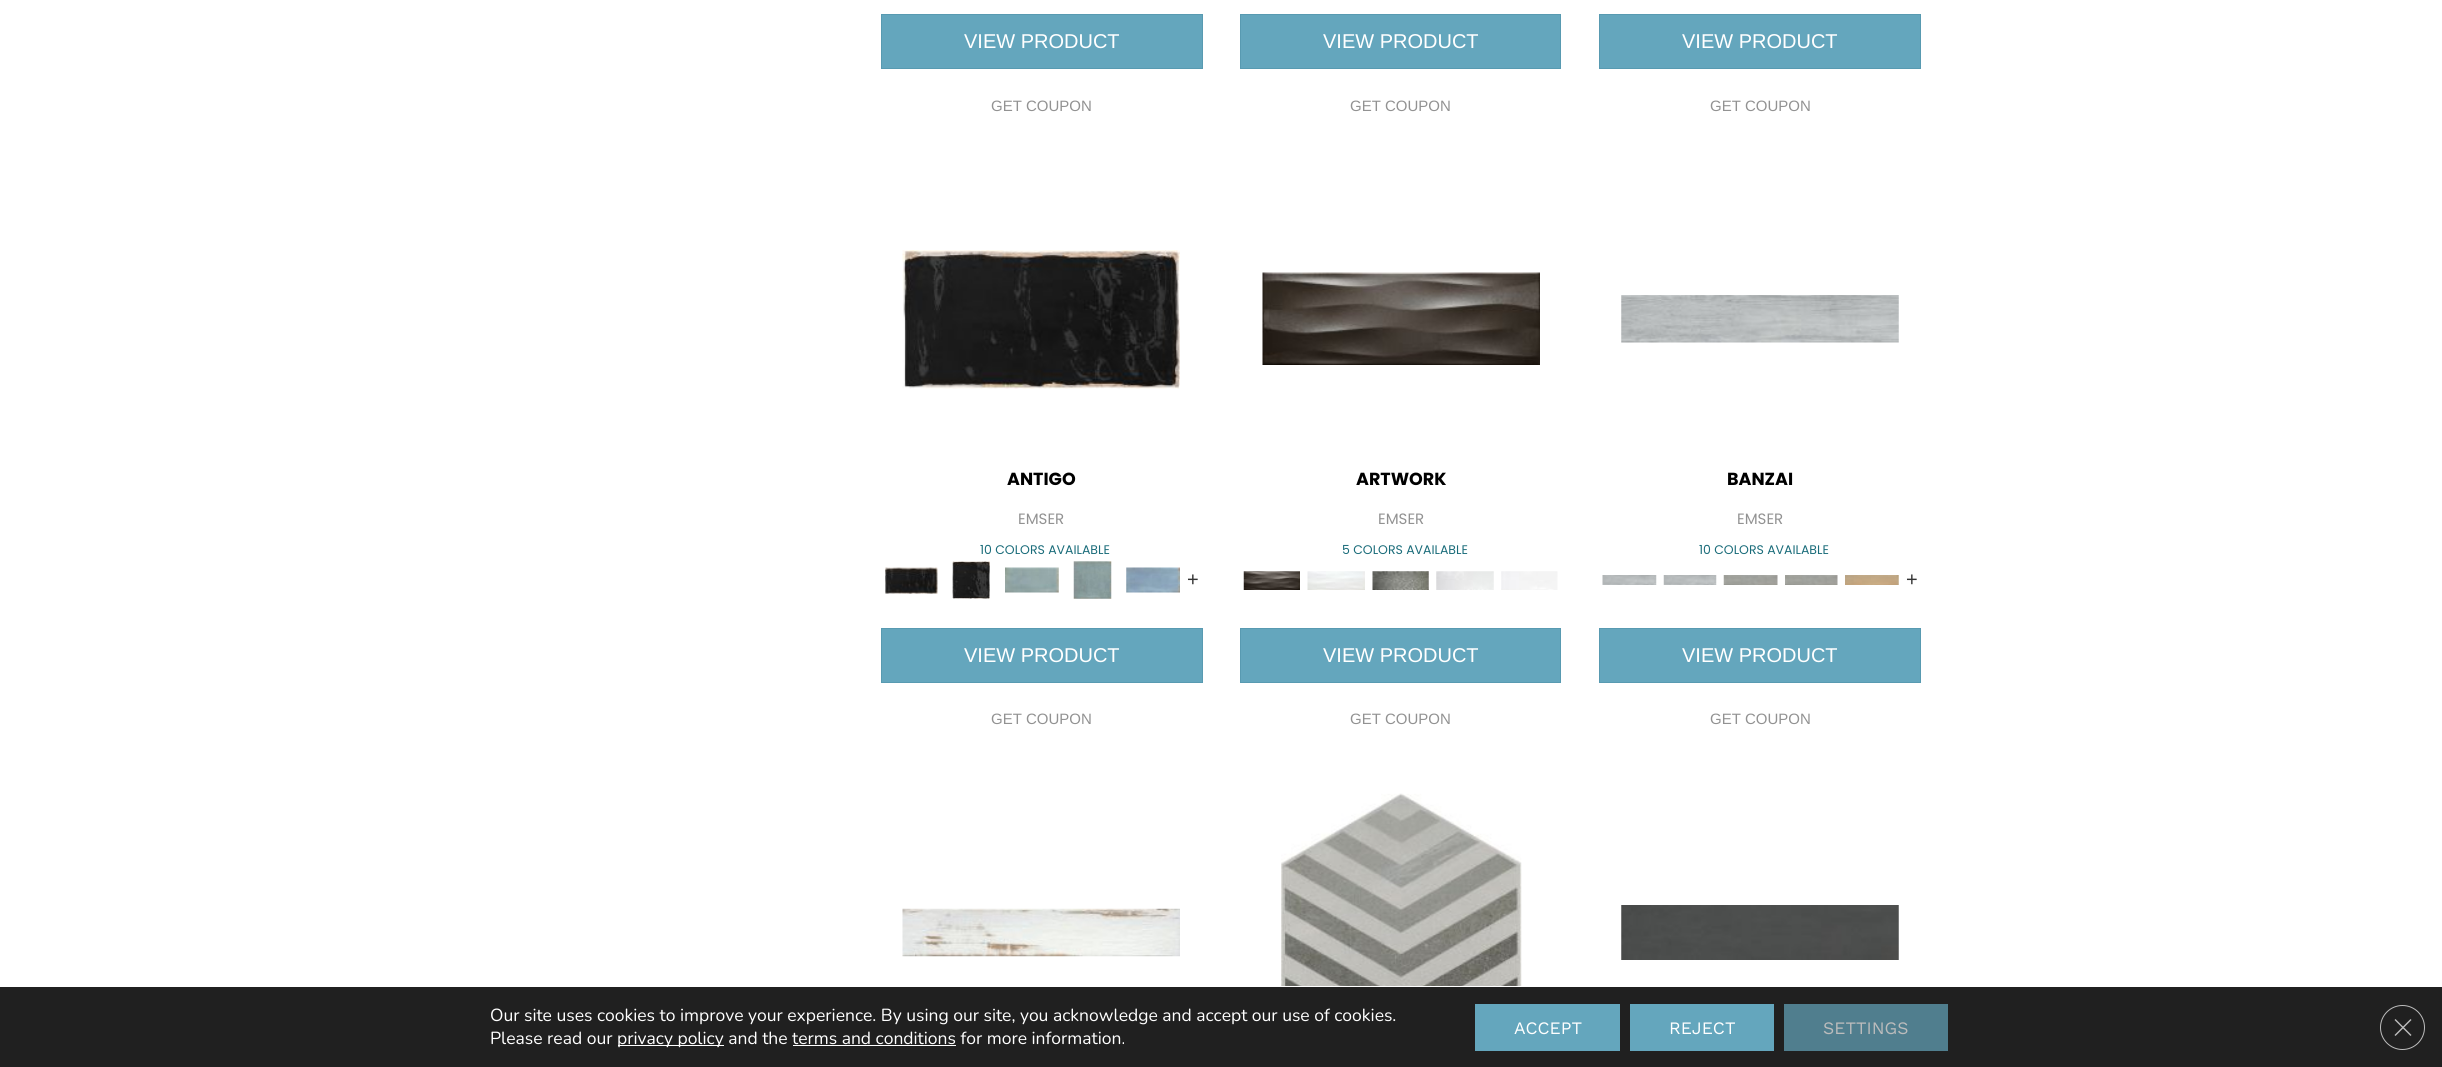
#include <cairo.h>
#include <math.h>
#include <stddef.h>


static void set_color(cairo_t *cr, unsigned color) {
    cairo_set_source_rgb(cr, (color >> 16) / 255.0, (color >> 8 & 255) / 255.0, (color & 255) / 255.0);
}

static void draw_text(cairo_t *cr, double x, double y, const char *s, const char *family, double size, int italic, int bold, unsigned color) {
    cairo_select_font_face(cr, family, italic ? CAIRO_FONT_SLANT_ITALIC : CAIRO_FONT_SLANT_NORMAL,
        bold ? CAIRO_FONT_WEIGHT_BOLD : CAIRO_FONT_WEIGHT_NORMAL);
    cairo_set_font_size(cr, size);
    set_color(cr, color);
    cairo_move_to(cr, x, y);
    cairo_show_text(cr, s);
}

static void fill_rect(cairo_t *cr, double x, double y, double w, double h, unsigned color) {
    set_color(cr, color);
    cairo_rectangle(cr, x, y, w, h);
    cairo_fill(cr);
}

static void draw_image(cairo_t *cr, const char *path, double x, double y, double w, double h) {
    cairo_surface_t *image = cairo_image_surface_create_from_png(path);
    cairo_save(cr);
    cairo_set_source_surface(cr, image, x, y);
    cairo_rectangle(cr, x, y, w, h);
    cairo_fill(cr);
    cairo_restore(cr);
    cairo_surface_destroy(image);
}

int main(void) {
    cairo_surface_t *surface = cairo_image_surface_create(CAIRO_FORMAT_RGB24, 2442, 1067);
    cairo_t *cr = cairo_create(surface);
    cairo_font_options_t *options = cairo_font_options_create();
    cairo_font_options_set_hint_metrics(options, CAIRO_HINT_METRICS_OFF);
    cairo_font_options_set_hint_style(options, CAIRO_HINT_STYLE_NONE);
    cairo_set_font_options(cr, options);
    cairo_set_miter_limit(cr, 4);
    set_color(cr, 0xFFFFFF);
    cairo_paint(cr);
    set_color(cr, 0x64A6BD);
    cairo_rectangle(cr, 881.5, 14.5, 321, 54);
    cairo_fill_preserve(cr);
    set_color(cr, 0x589AB1);
    cairo_set_line_width(cr, 1);
    cairo_stroke(cr);
    draw_text(cr, 964, 48, "VIEW PRODUCT", "Liberation Sans", 20, 0, 0, 0xFFFFFF);
    draw_text(cr, 991, 111, "GET COUPON", "Liberation Sans", 15, 0, 0, 0x929292);
    set_color(cr, 0x64A6BD);
    cairo_rectangle(cr, 1240.5, 14.5, 320, 54);
    cairo_fill_preserve(cr);
    set_color(cr, 0x589AB1);
    cairo_stroke(cr);
    draw_text(cr, 1323, 48, "VIEW PRODUCT", "Liberation Sans", 20, 0, 0, 0xFFFFFF);
    draw_text(cr, 1350, 111, "GET COUPON", "Liberation Sans", 15, 0, 0, 0x929292);
    set_color(cr, 0x64A6BD);
    cairo_rectangle(cr, 1599.5, 14.5, 321, 54);
    cairo_fill_preserve(cr);
    set_color(cr, 0x589AB1);
    cairo_stroke(cr);
    draw_text(cr, 1682, 48, "VIEW PRODUCT", "Liberation Sans", 20, 0, 0, 0xFFFFFF);
    draw_text(cr, 1710, 111, "GET COUPON", "Liberation Sans", 15, 0, 0, 0x929292);
    draw_image(cr, "assets/img1.png", 902, 250, 278, 139);
    draw_text(cr, 1007, 485, "ANTIGO", "Poppins", 17.5, 0, 1, 0x000000);
    draw_text(cr, 1018, 524, "EMSER", "Poppins", 15, 0, 0, 0x929292);
    draw_text(cr, 980, 554, "10 COLORS AVAILABLE", "Poppins", 12.5, 0, 0, 0x1A6C7A);
    draw_image(cr, "assets/img2.png", 885, 567, 53, 27);
    draw_image(cr, "assets/img3.png", 952, 561, 38, 38);
    draw_image(cr, "assets/img4.png", 1005, 567, 54, 26);
    draw_image(cr, "assets/img5.png", 1073, 561, 39, 38);
    draw_image(cr, "assets/img6.png", 1126, 567, 54, 26);
    draw_text(cr, 1187, 586, "+", "Liberation Sans", 20, 0, 0, 0x333333);
    set_color(cr, 0x64A6BD);
    cairo_rectangle(cr, 881.5, 628.5, 321, 54);
    cairo_fill_preserve(cr);
    set_color(cr, 0x589AB1);
    cairo_stroke(cr);
    draw_text(cr, 964, 662, "VIEW PRODUCT", "Liberation Sans", 20, 0, 0, 0xFFFFFF);
    draw_text(cr, 991, 724, "GET COUPON", "Liberation Sans", 15, 0, 0, 0x929292);
    draw_image(cr, "assets/img7.png", 1262, 272, 278, 93);
    draw_text(cr, 1356, 485, "ARTWORK", "Poppins", 17.5, 0, 1, 0x000000);
    draw_text(cr, 1378, 524, "EMSER", "Poppins", 15, 0, 0, 0x929292);
    draw_text(cr, 1342, 554, "5 COLORS AVAILABLE", "Poppins", 12.5, 0, 0, 0x1A6C7A);
    draw_image(cr, "assets/img8.png", 1243, 571, 57, 19);
    draw_image(cr, "assets/img9.png", 1307, 571, 58, 19);
    draw_image(cr, "assets/img10.png", 1372, 571, 57, 19);
    draw_image(cr, "assets/img11.png", 1436, 571, 58, 19);
    draw_image(cr, "assets/img12.png", 1501, 571, 57, 19);
    set_color(cr, 0x64A6BD);
    cairo_rectangle(cr, 1240.5, 628.5, 320, 54);
    cairo_fill_preserve(cr);
    set_color(cr, 0x589AB1);
    cairo_stroke(cr);
    draw_text(cr, 1323, 662, "VIEW PRODUCT", "Liberation Sans", 20, 0, 0, 0xFFFFFF);
    draw_text(cr, 1350, 724, "GET COUPON", "Liberation Sans", 15, 0, 0, 0x929292);
    draw_image(cr, "assets/img13.png", 1621, 295, 278, 48);
    draw_text(cr, 1727, 485, "BANZAI", "Poppins", 17.5, 0, 1, 0x000000);
    draw_text(cr, 1737, 524, "EMSER", "Poppins", 15, 0, 0, 0x929292);
    draw_text(cr, 1699, 554, "10 COLORS AVAILABLE", "Poppins", 12.5, 0, 0, 0x1A6C7A);
    draw_image(cr, "assets/img14.png", 1602, 575, 55, 10);
    draw_image(cr, "assets/img15.png", 1663, 575, 54, 10);
    draw_image(cr, "assets/img16.png", 1723, 575, 55, 10);
    draw_image(cr, "assets/img17.png", 1785, 575, 53, 10);
    draw_image(cr, "assets/img18.png", 1845, 575, 54, 10);
    draw_text(cr, 1906, 586, "+", "Liberation Sans", 20, 0, 0, 0x333333);
    set_color(cr, 0x64A6BD);
    cairo_rectangle(cr, 1599.5, 628.5, 321, 54);
    cairo_fill_preserve(cr);
    set_color(cr, 0x589AB1);
    cairo_stroke(cr);
    draw_text(cr, 1682, 662, "VIEW PRODUCT", "Liberation Sans", 20, 0, 0, 0xFFFFFF);
    draw_text(cr, 1710, 724, "GET COUPON", "Liberation Sans", 15, 0, 0, 0x929292);
    draw_image(cr, "assets/img19.png", 902, 908, 278, 49);
    draw_image(cr, "assets/img20.png", 1281, 793, 241, 193);
    draw_image(cr, "assets/img21.png", 1621, 905, 278, 55);
    fill_rect(cr, 0, 987, 2442, 80, 0x202020);
    draw_text(cr, 490, 1021, "Our site uses cookies to improve your experience. By using our site, you acknowledge and accept our use of cookies.", "Nunito", 17.5, 0, 0, 0xFFFFFF);
    draw_text(cr, 490, 1044, "Please read our", "Nunito", 17.5, 0, 0, 0xFFFFFF);
    fill_rect(cr, 618, 1045, 106, 1, 0xFFFFFF);
    draw_text(cr, 617, 1044, "privacy policy and the terms and conditions for more information.", "Nunito", 17.5, 0, 0, 0xFFFFFF);
    fill_rect(cr, 793, 1045, 163, 1, 0xFFFFFF);
    fill_rect(cr, 1475, 1004, 145, 47, 0x64A6BD);
    draw_text(cr, 1514, 1034, "ACCEPT", "Work Sans", 17.5, 0, 0, 0xFFFFFF);
    fill_rect(cr, 1630, 1004, 144, 47, 0x64A6BD);
    draw_text(cr, 1669, 1034, "REJECT", "Work Sans", 17.5, 0, 0, 0xFFFFFF);
    fill_rect(cr, 1784, 1004, 164, 47, 0x507E8E);
    draw_text(cr, 1823, 1034, "SETTINGS", "Work Sans", 17.5, 0, 0, 0xBCBCBC);
    cairo_new_path(cr);
    cairo_arc(cr, 2402.5, 1027.5, 22, 0, 2 * M_PI);
    cairo_stroke(cr);
    cairo_new_path(cr);
    cairo_move_to(cr, 2410.5, 1019);
    cairo_line_to(cr, 2411.5, 1020);
    cairo_line_to(cr, 2395.5, 1036);
    cairo_line_to(cr, 2394.5, 1035);
    cairo_close_path(cr);
    cairo_fill(cr);
    cairo_new_path(cr);
    cairo_move_to(cr, 2394.5, 1020);
    cairo_line_to(cr, 2395.5, 1019);
    cairo_line_to(cr, 2411.5, 1035);
    cairo_line_to(cr, 2410.5, 1036);
    cairo_close_path(cr);
    cairo_fill(cr);
    cairo_surface_write_to_png(surface, "output.png");
    cairo_font_options_destroy(options);
    cairo_destroy(cr);
    cairo_surface_destroy(surface);
    return 0;
}
